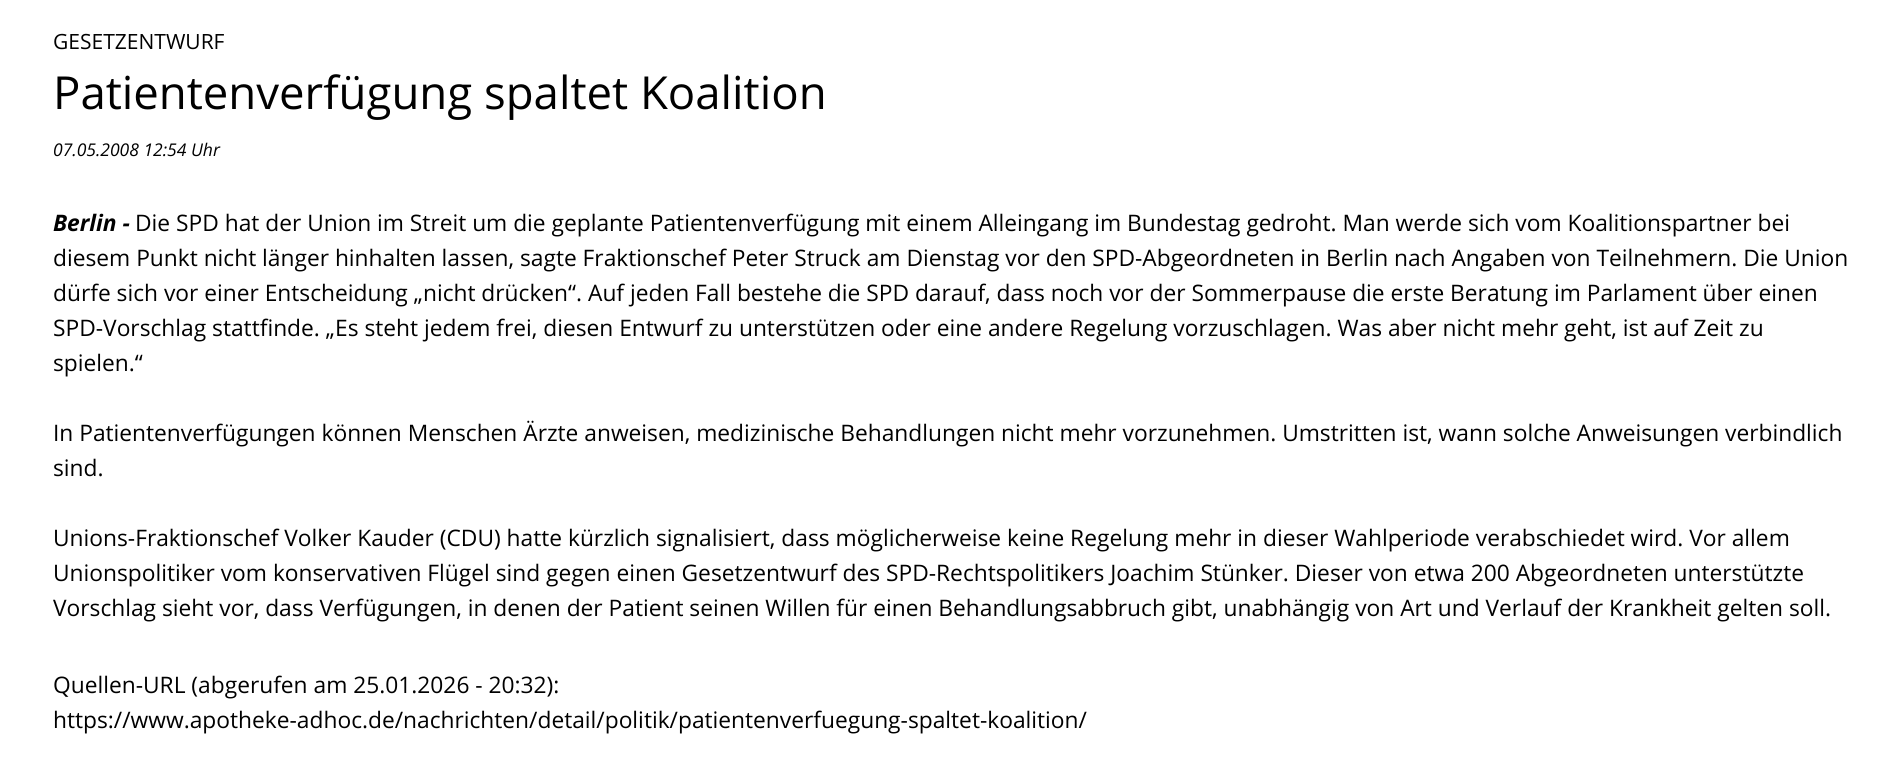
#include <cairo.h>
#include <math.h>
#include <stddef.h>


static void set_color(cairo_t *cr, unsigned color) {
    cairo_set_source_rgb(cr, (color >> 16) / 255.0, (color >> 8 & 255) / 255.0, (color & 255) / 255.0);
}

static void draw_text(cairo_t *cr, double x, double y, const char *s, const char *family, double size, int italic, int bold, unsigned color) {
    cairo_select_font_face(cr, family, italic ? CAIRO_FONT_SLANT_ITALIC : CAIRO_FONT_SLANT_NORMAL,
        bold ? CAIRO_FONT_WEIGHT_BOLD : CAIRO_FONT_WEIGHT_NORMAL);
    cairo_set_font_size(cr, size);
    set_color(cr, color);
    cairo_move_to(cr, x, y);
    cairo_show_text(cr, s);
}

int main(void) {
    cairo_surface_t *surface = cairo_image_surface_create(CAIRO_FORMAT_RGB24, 1903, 784);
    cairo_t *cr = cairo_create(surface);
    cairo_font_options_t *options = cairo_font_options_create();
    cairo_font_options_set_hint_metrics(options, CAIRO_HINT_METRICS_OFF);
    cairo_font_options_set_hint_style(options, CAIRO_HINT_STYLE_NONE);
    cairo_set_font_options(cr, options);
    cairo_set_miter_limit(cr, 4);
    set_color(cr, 0xFFFFFF);
    cairo_paint(cr);
    draw_text(cr, 53, 49, "GESETZENTWURF", "Open Sans", 21, 0, 0, 0x000000);
    draw_text(cr, 53, 109, "Patientenverfügung spaltet Koalition", "Open Sans", 45.5, 0, 0, 0x000000);
    draw_text(cr, 53, 156, "07.05.2008 12:54 Uhr", "Open Sans", 17.5, 1, 0, 0x000000);
    draw_text(cr, 53, 231, "Berlin -", "Open Sans", 22.75, 1, 1, 0x000000);
    draw_text(cr, 135, 231, "Die SPD hat der Union im Streit um die geplante Patientenverfügung mit einem Alleingang im Bundestag gedroht. Man werde sich vom Koalitionspartner bei", "Open Sans", 22.75, 0, 0, 0x000000);
    draw_text(cr, 53, 266, "diesem Punkt nicht länger hinhalten lassen, sagte Fraktionschef Peter Struck am Dienstag vor den SPD-Abgeordneten in Berlin nach Angaben von Teilnehmern. Die Union", "Open Sans", 22.75, 0, 0, 0x000000);
    draw_text(cr, 53, 301, "dürfe sich vor einer Entscheidung „nicht drücken“. Auf jeden Fall bestehe die SPD darauf, dass noch vor der Sommerpause die erste Beratung im Parlament über einen", "Open Sans", 22.75, 0, 0, 0x000000);
    draw_text(cr, 53, 336, "SPD-Vorschlag stattfinde. „Es steht jedem frei, diesen Entwurf zu unterstützen oder eine andere Regelung vorzuschlagen. Was aber nicht mehr geht, ist auf Zeit zu", "Open Sans", 22.75, 0, 0, 0x000000);
    draw_text(cr, 53, 371, "spielen.“", "Open Sans", 22.75, 0, 0, 0x000000);
    draw_text(cr, 53, 441, "In Patientenverfügungen können Menschen Ärzte anweisen, medizinische Behandlungen nicht mehr vorzunehmen. Umstritten ist, wann solche Anweisungen verbindlich", "Open Sans", 22.75, 0, 0, 0x000000);
    draw_text(cr, 53, 476, "sind.", "Open Sans", 22.75, 0, 0, 0x000000);
    draw_text(cr, 53, 546, "Unions-Fraktionschef Volker Kauder (CDU) hatte kürzlich signalisiert, dass möglicherweise keine Regelung mehr in dieser Wahlperiode verabschiedet wird. Vor allem", "Open Sans", 22.75, 0, 0, 0x000000);
    draw_text(cr, 53, 581, "Unionspolitiker vom konservativen Flügel sind gegen einen Gesetzentwurf des SPD-Rechtspolitikers Joachim Stünker. Dieser von etwa 200 Abgeordneten unterstützte", "Open Sans", 22.75, 0, 0, 0x000000);
    draw_text(cr, 53, 616, "Vorschlag sieht vor, dass Verfügungen, in denen der Patient seinen Willen für einen Behandlungsabbruch gibt, unabhängig von Art und Verlauf der Krankheit gelten soll.", "Open Sans", 22.75, 0, 0, 0x000000);
    draw_text(cr, 53, 693, "Quellen-URL (abgerufen am 25.01.2026 - 20:32):", "Open Sans", 22.75, 0, 0, 0x000000);
    draw_text(cr, 53, 728, "https://www.apotheke-adhoc.de/nachrichten/detail/politik/patientenverfuegung-spaltet-koalition/", "Open Sans", 22.75, 0, 0, 0x000000);
    cairo_surface_write_to_png(surface, "output.png");
    cairo_font_options_destroy(options);
    cairo_destroy(cr);
    cairo_surface_destroy(surface);
    return 0;
}
